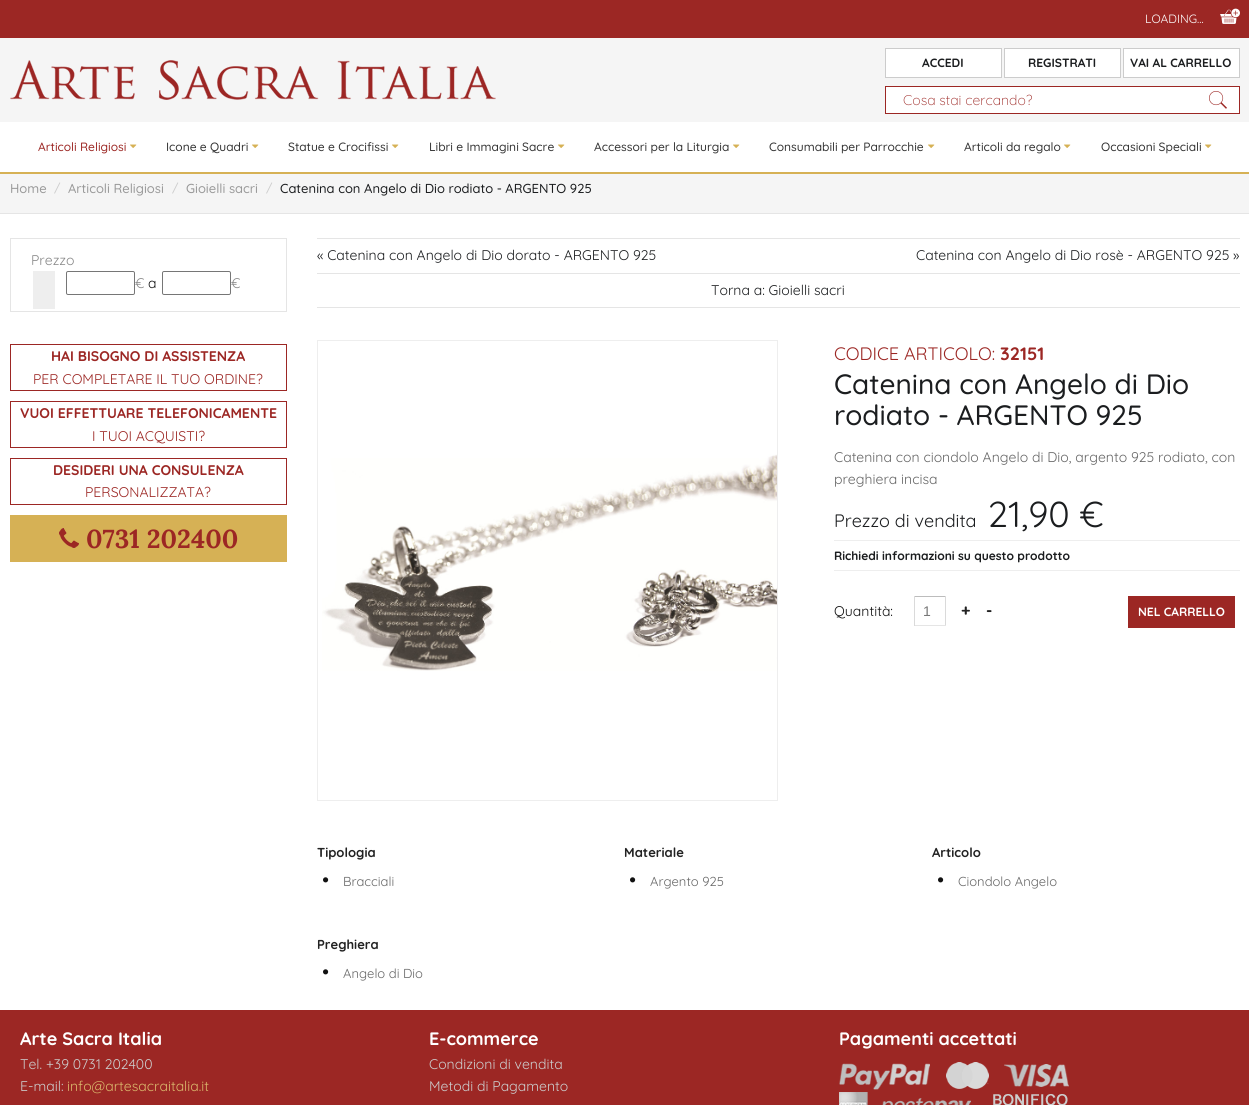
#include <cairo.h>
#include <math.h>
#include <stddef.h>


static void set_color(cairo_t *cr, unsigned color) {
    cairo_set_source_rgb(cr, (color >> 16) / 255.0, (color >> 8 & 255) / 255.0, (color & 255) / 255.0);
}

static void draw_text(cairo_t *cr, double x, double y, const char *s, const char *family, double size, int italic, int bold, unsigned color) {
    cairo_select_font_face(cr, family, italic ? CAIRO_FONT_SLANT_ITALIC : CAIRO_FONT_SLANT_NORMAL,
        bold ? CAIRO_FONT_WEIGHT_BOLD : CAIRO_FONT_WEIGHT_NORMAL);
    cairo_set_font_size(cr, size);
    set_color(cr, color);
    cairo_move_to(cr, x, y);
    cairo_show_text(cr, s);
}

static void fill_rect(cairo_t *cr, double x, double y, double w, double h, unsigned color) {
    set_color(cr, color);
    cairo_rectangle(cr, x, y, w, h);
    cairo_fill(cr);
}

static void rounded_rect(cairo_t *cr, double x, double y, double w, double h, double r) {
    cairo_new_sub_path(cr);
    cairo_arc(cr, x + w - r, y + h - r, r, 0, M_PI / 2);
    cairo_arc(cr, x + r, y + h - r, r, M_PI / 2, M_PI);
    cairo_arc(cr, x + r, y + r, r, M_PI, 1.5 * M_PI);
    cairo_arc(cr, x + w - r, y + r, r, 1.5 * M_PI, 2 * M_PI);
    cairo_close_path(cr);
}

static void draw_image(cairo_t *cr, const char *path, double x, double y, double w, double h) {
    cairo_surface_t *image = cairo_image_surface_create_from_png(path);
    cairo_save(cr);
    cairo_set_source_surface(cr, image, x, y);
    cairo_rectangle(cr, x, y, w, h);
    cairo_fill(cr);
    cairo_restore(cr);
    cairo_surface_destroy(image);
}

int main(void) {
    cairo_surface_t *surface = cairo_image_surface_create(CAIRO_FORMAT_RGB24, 1249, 1105);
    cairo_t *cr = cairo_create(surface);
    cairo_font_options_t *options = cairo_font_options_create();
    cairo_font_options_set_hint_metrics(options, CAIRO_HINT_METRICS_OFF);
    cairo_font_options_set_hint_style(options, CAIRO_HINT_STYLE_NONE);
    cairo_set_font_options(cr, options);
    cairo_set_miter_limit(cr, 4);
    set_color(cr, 0xFFFFFF);
    cairo_paint(cr);
    fill_rect(cr, 0, 0, 1249, 38, 0x9C2724);
    draw_text(cr, 1145, 23, "LOADING...", "Quicksand", 12, 0, 0, 0xFFFFFF);
    draw_image(cr, "assets/img1.png", 1220, 8, 20, 16);
    fill_rect(cr, 0, 38, 1249, 84, 0xF5F5F5);
    draw_image(cr, "assets/img2.png", 10, 60, 486, 40);
    set_color(cr, 0xFFFFFF);
    cairo_rectangle(cr, 885.5, 48.5, 116, 29);
    cairo_fill_preserve(cr);
    set_color(cr, 0xCCCCCC);
    cairo_set_line_width(cr, 1);
    cairo_stroke(cr);
    draw_text(cr, 922, 67, "ACCEDI", "Quicksand", 12, 0, 1, 0x1B1D1F);
    set_color(cr, 0xFFFFFF);
    cairo_rectangle(cr, 1004.5, 48.5, 116, 29);
    cairo_fill_preserve(cr);
    set_color(cr, 0xCCCCCC);
    cairo_stroke(cr);
    draw_text(cr, 1028, 67, "REGISTRATI", "Quicksand", 12, 0, 1, 0x1B1D1F);
    set_color(cr, 0xFFFFFF);
    cairo_rectangle(cr, 1123.5, 48.5, 116, 29);
    cairo_fill_preserve(cr);
    set_color(cr, 0xCCCCCC);
    cairo_stroke(cr);
    draw_text(cr, 1130, 67, "VAI AL CARRELLO", "Quicksand", 12, 0, 1, 0x1B1D1F);
    set_color(cr, 0xFFFFFF);
    cairo_rectangle(cr, 885.5, 86.5, 354, 27);
    cairo_fill_preserve(cr);
    set_color(cr, 0x9C2724);
    cairo_stroke(cr);
    draw_text(cr, 903, 105, "Cosa stai cercando?", "Quicksand Light", 14, 0, 0, 0x9C2724);
    draw_image(cr, "assets/img3.png", 1209, 91, 18, 18);
    fill_rect(cr, 0, 172, 1249, 2, 0xD6B155);
    draw_text(cr, 38, 151, "Articoli Religiosi", "Quicksand Medium", 12, 0, 0, 0x9C2724);
    draw_image(cr, "assets/img4.png", 130, 144, 7, 4);
    draw_text(cr, 166, 151, "Icone e Quadri", "Quicksand Medium", 12, 0, 0, 0x333333);
    draw_image(cr, "assets/img4.png", 252, 144, 7, 4);
    draw_text(cr, 288, 151, "Statue e Crocifissi", "Quicksand Medium", 12, 0, 0, 0x333333);
    draw_image(cr, "assets/img4.png", 392, 144, 7, 4);
    draw_text(cr, 429, 151, "Libri e Immagini Sacre", "Quicksand Medium", 12, 0, 0, 0x333333);
    draw_image(cr, "assets/img4.png", 558, 144, 7, 4);
    draw_text(cr, 594, 151, "Accessori per la Liturgia", "Quicksand Medium", 12, 0, 0, 0x333333);
    draw_image(cr, "assets/img4.png", 733, 144, 7, 4);
    draw_text(cr, 769, 151, "Consumabili per Parrocchie", "Quicksand Medium", 12, 0, 0, 0x333333);
    draw_image(cr, "assets/img4.png", 928, 144, 7, 4);
    draw_text(cr, 964, 151, "Articoli da regalo", "Quicksand Medium", 12, 0, 0, 0x333333);
    draw_image(cr, "assets/img4.png", 1064, 144, 7, 4);
    draw_text(cr, 1101, 151, "Occasioni Speciali", "Quicksand Medium", 12, 0, 0, 0x333333);
    draw_image(cr, "assets/img4.png", 1205, 144, 7, 4);
    fill_rect(cr, 0, 174, 1249, 39, 0xF5F5F5);
    fill_rect(cr, 0, 213, 1249, 1, 0xE5E5E5);
    draw_text(cr, 10, 193, "Home", "Quicksand Medium", 13, 0, 0, 0x999999);
    draw_text(cr, 54, 192, "/", "Quicksand Medium", 12, 0, 0, 0xCCCCCC);
    draw_text(cr, 68, 193, "Articoli Religiosi", "Quicksand Medium", 13, 0, 0, 0x999999);
    draw_text(cr, 172, 192, "/", "Quicksand Medium", 12, 0, 0, 0xCCCCCC);
    draw_text(cr, 186, 193, "Gioielli sacri", "Quicksand Medium", 13, 0, 0, 0x999999);
    draw_text(cr, 266, 192, "/", "Quicksand Medium", 12, 0, 0, 0xCCCCCC);
    draw_text(cr, 280, 193, "Catenina con Angelo di Dio rodiato - ARGENTO 925", "Quicksand Medium", 13, 0, 0, 0x1B1D1F);
    cairo_rectangle(cr, 10.5, 238.5, 276, 73);
    set_color(cr, 0xE5E5E5);
    cairo_stroke(cr);
    draw_text(cr, 31, 265, "Prezzo", "Quicksand", 14, 0, 0, 0x888888);
    fill_rect(cr, 33, 271, 22, 38, 0xEEEEEE);
    rounded_rect(cr, 66.5, 271.5, 68, 23, 1.5);
    set_color(cr, 0x767676);
    cairo_stroke(cr);
    draw_text(cr, 135, 288, "€", "Quicksand", 14, 0, 0, 0x888888);
    draw_text(cr, 148, 288, "a", "Quicksand", 14, 0, 0, 0x111111);
    rounded_rect(cr, 162.5, 271.5, 68, 23, 1.5);
    set_color(cr, 0x767676);
    cairo_stroke(cr);
    draw_text(cr, 231, 288, "€", "Quicksand", 14, 0, 0, 0x888888);
    cairo_rectangle(cr, 10.5, 344.5, 276, 46);
    set_color(cr, 0x9C2724);
    cairo_stroke(cr);
    draw_text(cr, 51, 361, "HAI BISOGNO DI ASSISTENZA", "Quicksand", 14, 0, 1, 0x9C2724);
    draw_text(cr, 33, 384, "PER COMPLETARE IL TUO ORDINE?", "Quicksand", 14, 0, 0, 0x9C2724);
    cairo_rectangle(cr, 10.5, 401.5, 276, 46);
    cairo_stroke(cr);
    draw_text(cr, 20, 418, "VUOI EFFETTUARE TELEFONICAMENTE", "Quicksand", 14, 0, 1, 0x9C2724);
    draw_text(cr, 92, 441, "I TUOI ACQUISTI?", "Quicksand", 14, 0, 0, 0x9C2724);
    cairo_rectangle(cr, 10.5, 458.5, 276, 46);
    cairo_stroke(cr);
    draw_text(cr, 53, 475, "DESIDERI UNA CONSULENZA", "Quicksand", 14, 0, 1, 0x9C2724);
    draw_text(cr, 85, 497, "PERSONALIZZATA?", "Quicksand", 14, 0, 0, 0x9C2724);
    fill_rect(cr, 10, 515, 277, 47, 0xD6B155);
    draw_image(cr, "assets/img5.png", 59, 528, 20, 20);
    draw_text(cr, 86, 548, "0731 202400", "Lora", 26, 0, 1, 0x9C2724);
    fill_rect(cr, 317, 238, 923, 1, 0xE5E5E5);
    fill_rect(cr, 317, 273, 923, 1, 0xE5E5E5);
    draw_text(cr, 317, 260, "« Catenina con Angelo di Dio dorato - ARGENTO 925", "Quicksand", 14, 0, 0, 0x1B1D1F);
    draw_text(cr, 916, 260, "Catenina con Angelo di Dio rosè - ARGENTO 925 »", "Quicksand", 14, 0, 0, 0x1B1D1F);
    fill_rect(cr, 317, 307, 923, 1, 0xE5E5E5);
    draw_text(cr, 711, 295, "Torna a: Gioielli sacri", "Quicksand", 14, 0, 0, 0x1B1D1F);
    cairo_rectangle(cr, 317.5, 340.5, 460, 460);
    set_color(cr, 0xEEEEEE);
    cairo_stroke(cr);
    draw_image(cr, "assets/img6.png", 322, 454, 455, 217);
    draw_text(cr, 834, 360, "CODICE ARTICOLO:", "Quicksand", 18, 0, 0, 0x9C2724);
    draw_text(cr, 1000, 360, "32151", "Quicksand", 18, 0, 1, 0x9C2724);
    draw_text(cr, 834, 394, "Catenina con Angelo di Dio", "Quicksand Medium", 28, 0, 0, 0x1B1D1F);
    draw_text(cr, 834, 425, "rodiato - ARGENTO 925", "Quicksand Medium", 28, 0, 0, 0x1B1D1F);
    draw_text(cr, 834, 462, "Catenina con ciondolo Angelo di Dio, argento 925 rodiato, con", "Quicksand", 14, 0, 0, 0x666666);
    draw_text(cr, 834, 484, "preghiera incisa", "Quicksand", 14, 0, 0, 0x666666);
    draw_text(cr, 834, 527, "Prezzo di vendita", "Quicksand", 18, 0, 0, 0x1B1D1F);
    draw_text(cr, 988, 527, "21,90 €", "Quicksand", 36, 0, 0, 0x1B1D1F);
    fill_rect(cr, 834, 540, 406, 1, 0xEEEEEE);
    fill_rect(cr, 834, 570, 406, 1, 0xEEEEEE);
    draw_text(cr, 834, 560, "Richiedi informazioni su questo prodotto", "Quicksand", 12, 0, 1, 0x1B1D1F);
    draw_text(cr, 834, 616, "Quantità:", "Quicksand", 14, 0, 0, 0x111111);
    fill_rect(cr, 914, 596, 32, 1, 0xBCBCBC);
    fill_rect(cr, 945, 596, 1, 30, 0xDADADA);
    fill_rect(cr, 914, 625, 32, 1, 0xE5E5E5);
    fill_rect(cr, 914, 596, 1, 30, 0xDADADA);
    draw_text(cr, 923, 616, "1", "Liberation Sans", 14, 0, 0, 0x777777);
    draw_text(cr, 961, 616, "+", "Quicksand", 16, 0, 1, 0x222222);
    draw_text(cr, 986, 616, "-", "Quicksand", 16, 0, 1, 0x222222);
    fill_rect(cr, 1128, 596, 107, 32, 0x9C2724);
    draw_text(cr, 1138, 616, "NEL CARRELLO", "Quicksand", 12, 0, 1, 0xFFFFFF);
    draw_text(cr, 317, 857, "Tipologia", "Quicksand", 13, 0, 1, 0x222222);
    draw_image(cr, "assets/img7.png", 323, 877, 6, 6);
    draw_text(cr, 343, 886, "Bracciali", "Quicksand", 13, 0, 0, 0x666666);
    draw_text(cr, 624, 857, "Materiale", "Quicksand", 13, 0, 1, 0x222222);
    draw_image(cr, "assets/img7.png", 630, 877, 6, 6);
    draw_text(cr, 650, 886, "Argento 925", "Quicksand", 13, 0, 0, 0x666666);
    draw_text(cr, 932, 857, "Articolo", "Quicksand", 13, 0, 1, 0x222222);
    draw_image(cr, "assets/img7.png", 938, 877, 6, 6);
    draw_text(cr, 958, 886, "Ciondolo Angelo", "Quicksand", 13, 0, 0, 0x666666);
    draw_text(cr, 317, 949, "Preghiera", "Quicksand", 13, 0, 1, 0x222222);
    draw_image(cr, "assets/img7.png", 323, 969, 6, 6);
    draw_text(cr, 343, 978, "Angelo di Dio", "Quicksand", 13, 0, 0, 0x666666);
    fill_rect(cr, 0, 1010, 1249, 95, 0x9C2724);
    draw_text(cr, 20, 1045, "Arte Sacra Italia", "Quicksand", 18, 0, 1, 0xFFFFFF);
    draw_text(cr, 20, 1069, "Tel. +39 0731 202400", "Quicksand", 14, 0, 0, 0xCCCCCC);
    draw_text(cr, 20, 1091, "E-mail:", "Quicksand", 14, 0, 0, 0xCCCCCC);
    draw_text(cr, 67, 1091, "info@artesacraitalia.it", "Quicksand", 14, 0, 0, 0xDAB76C);
    draw_text(cr, 429, 1045, "E-commerce", "Quicksand", 18, 0, 1, 0xFFFFFF);
    draw_text(cr, 429, 1069, "Condizioni di vendita", "Quicksand", 14, 0, 0, 0xCCCCCC);
    draw_text(cr, 429, 1091, "Metodi di Pagamento", "Quicksand", 14, 0, 0, 0xCCCCCC);
    draw_text(cr, 839, 1045, "Pagamenti accettati", "Quicksand", 18, 0, 1, 0xFFFFFF);
    draw_image(cr, "assets/img8.png", 839, 1062, 230, 43);
    cairo_surface_write_to_png(surface, "output.png");
    cairo_font_options_destroy(options);
    cairo_destroy(cr);
    cairo_surface_destroy(surface);
    return 0;
}
